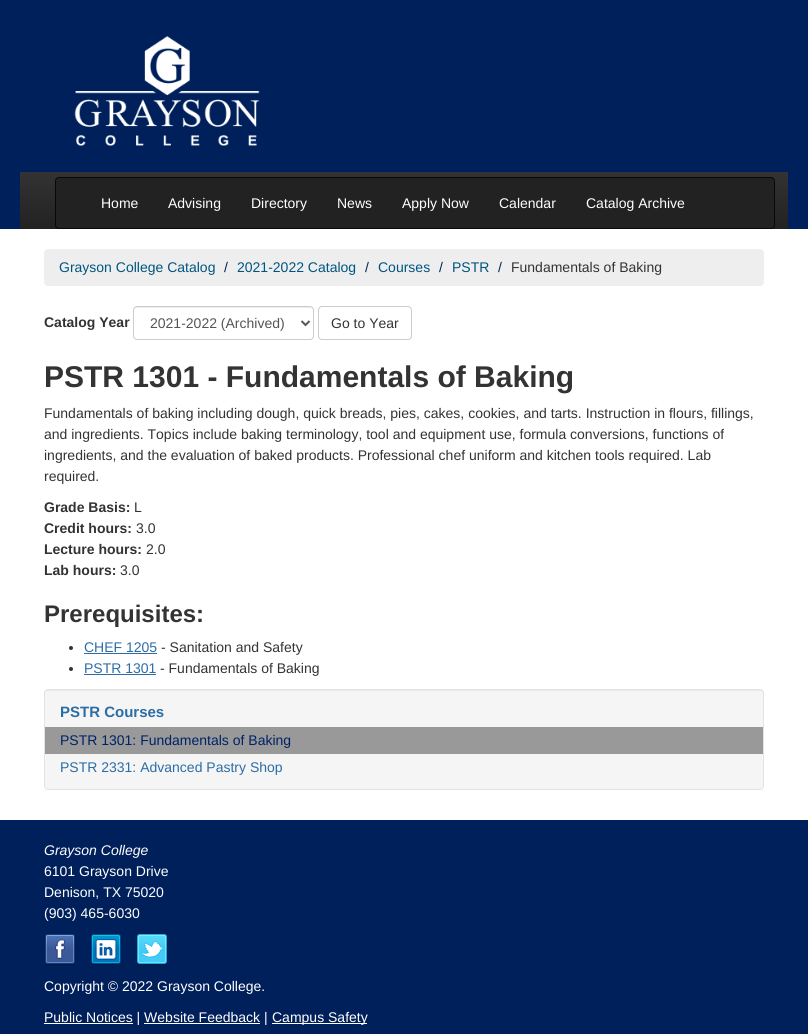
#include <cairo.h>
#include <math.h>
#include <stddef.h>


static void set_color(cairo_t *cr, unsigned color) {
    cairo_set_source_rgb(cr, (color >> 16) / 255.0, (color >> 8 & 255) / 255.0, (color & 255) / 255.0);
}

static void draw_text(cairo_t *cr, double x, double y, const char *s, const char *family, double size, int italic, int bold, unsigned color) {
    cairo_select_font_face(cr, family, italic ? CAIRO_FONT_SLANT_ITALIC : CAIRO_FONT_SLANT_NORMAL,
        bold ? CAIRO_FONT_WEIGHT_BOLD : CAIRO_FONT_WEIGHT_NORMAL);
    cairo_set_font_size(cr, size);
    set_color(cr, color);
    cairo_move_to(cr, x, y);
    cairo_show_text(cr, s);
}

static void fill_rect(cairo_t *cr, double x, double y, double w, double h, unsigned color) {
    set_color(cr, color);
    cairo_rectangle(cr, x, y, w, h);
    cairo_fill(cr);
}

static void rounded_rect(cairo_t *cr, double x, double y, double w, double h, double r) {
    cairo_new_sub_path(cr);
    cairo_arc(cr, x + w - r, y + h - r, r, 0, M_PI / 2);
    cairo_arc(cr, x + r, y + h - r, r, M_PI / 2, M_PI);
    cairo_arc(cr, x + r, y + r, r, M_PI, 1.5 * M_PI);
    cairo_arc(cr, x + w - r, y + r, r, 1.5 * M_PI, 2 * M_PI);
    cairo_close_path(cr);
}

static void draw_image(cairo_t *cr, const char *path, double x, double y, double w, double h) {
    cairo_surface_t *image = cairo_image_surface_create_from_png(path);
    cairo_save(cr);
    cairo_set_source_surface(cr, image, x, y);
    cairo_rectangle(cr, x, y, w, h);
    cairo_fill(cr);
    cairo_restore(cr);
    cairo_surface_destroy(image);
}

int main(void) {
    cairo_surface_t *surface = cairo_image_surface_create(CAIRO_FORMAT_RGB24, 808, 1034);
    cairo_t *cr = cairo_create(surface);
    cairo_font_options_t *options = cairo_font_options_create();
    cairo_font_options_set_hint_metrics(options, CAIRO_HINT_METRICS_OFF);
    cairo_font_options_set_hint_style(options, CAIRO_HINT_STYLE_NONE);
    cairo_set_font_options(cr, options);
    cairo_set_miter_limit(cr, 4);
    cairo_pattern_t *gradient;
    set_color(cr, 0xFFFFFF);
    cairo_paint(cr);
    fill_rect(cr, 0, 0, 808, 229, 0x00205B);
    draw_image(cr, "assets/img1.png", 74, 36, 186, 110);
    gradient = cairo_pattern_create_linear(404, 172, 404, 229);
    cairo_pattern_add_color_stop_rgba(gradient, 0, 0.2, 0.2, 0.2, 1);
    cairo_pattern_add_color_stop_rgba(gradient, 1, 0.133, 0.133, 0.133, 1);
    cairo_set_source(cr, gradient);
    cairo_pattern_destroy(gradient);
    cairo_rectangle(cr, 20, 172, 768, 57);
    cairo_fill(cr);
    set_color(cr, 0x222222);
    rounded_rect(cr, 55.5, 177.5, 719, 51, 3.5);
    cairo_fill_preserve(cr);
    set_color(cr, 0x080808);
    cairo_set_line_width(cr, 1);
    cairo_stroke(cr);
    draw_text(cr, 101, 208, "Home", "Liberation Sans", 14, 0, 0, 0xFFFFFF);
    draw_text(cr, 168, 208, "Advising", "Liberation Sans", 14, 0, 0, 0xFFFFFF);
    draw_text(cr, 251, 208, "Directory", "Liberation Sans", 14, 0, 0, 0xFFFFFF);
    draw_text(cr, 337, 208, "News", "Liberation Sans", 14, 0, 0, 0xFFFFFF);
    draw_text(cr, 402, 208, "Apply Now", "Liberation Sans", 14, 0, 0, 0xFFFFFF);
    draw_text(cr, 499, 208, "Calendar", "Liberation Sans", 14, 0, 0, 0xFFFFFF);
    draw_text(cr, 586, 208, "Catalog Archive", "Liberation Sans", 14, 0, 0, 0xFFFFFF);
    set_color(cr, 0xEEEEEE);
    rounded_rect(cr, 44, 249, 720, 37, 4);
    cairo_fill(cr);
    draw_text(cr, 59, 272, "Grayson College Catalog", "Liberation Sans", 14, 0, 0, 0x005580);
    draw_text(cr, 224, 272, "/", "Liberation Sans", 14, 0, 0, 0x002254);
    draw_text(cr, 237, 272, "2021-2022 Catalog", "Liberation Sans", 14, 0, 0, 0x005580);
    draw_text(cr, 365, 272, "/", "Liberation Sans", 14, 0, 0, 0x002254);
    draw_text(cr, 378, 272, "Courses", "Liberation Sans", 14, 0, 0, 0x005580);
    draw_text(cr, 439, 272, "/", "Liberation Sans", 14, 0, 0, 0x002254);
    draw_text(cr, 452, 272, "PSTR", "Liberation Sans", 14, 0, 0, 0x005580);
    draw_text(cr, 498, 272, "/", "Liberation Sans", 14, 0, 0, 0x002254);
    draw_text(cr, 511, 272, "Fundamentals of Baking", "Liberation Sans", 14, 0, 0, 0x333333);
    draw_text(cr, 44, 327, "Catalog Year", "Liberation Sans", 14, 0, 1, 0x333333);
    set_color(cr, 0xECECEC);
    cairo_new_path(cr);
    cairo_move_to(cr, 137, 308);
    cairo_line_to(cr, 310, 308);
    cairo_curve_to(cr, 312, 308, 313, 309, 313, 311);
    cairo_line_to(cr, 313, 310);
    cairo_curve_to(cr, 313, 308, 312, 307, 310, 307);
    cairo_line_to(cr, 137, 307);
    cairo_curve_to(cr, 135, 307, 134, 308, 134, 310);
    cairo_line_to(cr, 134, 311);
    cairo_curve_to(cr, 134, 309, 135, 308, 137, 308);
    cairo_close_path(cr);
    cairo_fill(cr);
    rounded_rect(cr, 133.5, 306.5, 180, 33, 3.5);
    set_color(cr, 0xCCCCCC);
    cairo_stroke(cr);
    cairo_new_path(cr);
    cairo_move_to(cr, 301.5, 321);
    cairo_line_to(cr, 305.5, 325);
    cairo_line_to(cr, 309.5, 321);
    set_color(cr, 0x555555);
    cairo_set_line_width(cr, 2);
    cairo_stroke(cr);
    draw_text(cr, 150, 328, "2021-2022 (Archived)", "Liberation Sans", 14, 0, 0, 0x555555);
    rounded_rect(cr, 318.5, 306.5, 93, 33, 3.5);
    set_color(cr, 0xCCCCCC);
    cairo_set_line_width(cr, 1);
    cairo_stroke(cr);
    draw_text(cr, 331, 328, "Go to Year", "Liberation Sans", 14, 0, 0, 0x333333);
    draw_text(cr, 44, 387, "PSTR 1301 - Fundamentals of Baking", "Liberation Sans", 30, 0, 1, 0x333333);
    draw_text(cr, 44, 418, "Fundamentals of baking including dough, quick breads, pies, cakes, cookies, and tarts. Instruction in flours, fillings,", "Liberation Sans", 14, 0, 0, 0x333333);
    draw_text(cr, 44, 439, "and ingredients. Topics include baking terminology, tool and equipment use, formula conversions, functions of", "Liberation Sans", 14, 0, 0, 0x333333);
    draw_text(cr, 44, 460, "ingredients, and the evaluation of baked products. Professional chef uniform and kitchen tools required. Lab", "Liberation Sans", 14, 0, 0, 0x333333);
    draw_text(cr, 44, 481, "required.", "Liberation Sans", 14, 0, 0, 0x333333);
    draw_text(cr, 44, 512, "Grade Basis:", "Liberation Sans", 14, 0, 1, 0x333333);
    draw_text(cr, 134, 512, "L", "Liberation Sans", 14, 0, 0, 0x333333);
    draw_text(cr, 44, 533, "Credit hours:", "Liberation Sans", 14, 0, 1, 0x333333);
    draw_text(cr, 136, 533, "3.0", "Liberation Sans", 14, 0, 0, 0x333333);
    draw_text(cr, 44, 554, "Lecture hours:", "Liberation Sans", 14, 0, 1, 0x333333);
    draw_text(cr, 146, 554, "2.0", "Liberation Sans", 14, 0, 0, 0x333333);
    draw_text(cr, 44, 575, "Lab hours:", "Liberation Sans", 14, 0, 1, 0x333333);
    draw_text(cr, 120, 575, "3.0", "Liberation Sans", 14, 0, 0, 0x333333);
    draw_text(cr, 44, 622, "Prerequisites:", "Liberation Sans", 24, 0, 1, 0x333333);
    cairo_new_path(cr);
    cairo_arc(cr, 71, 648, 2, 0, 2 * M_PI);
    cairo_fill(cr);
    draw_text(cr, 84, 652, "CHEF 1205", "Liberation Sans", 14, 0, 0, 0x2C6DA6);
    fill_rect(cr, 84, 653, 73, 1, 0x2C6DA6);
    draw_text(cr, 161, 652, "- Sanitation and Safety", "Liberation Sans", 14, 0, 0, 0x333333);
    cairo_new_path(cr);
    cairo_arc(cr, 71, 669, 2, 0, 2 * M_PI);
    cairo_fill(cr);
    draw_text(cr, 84, 673, "PSTR 1301", "Liberation Sans", 14, 0, 0, 0x2C6DA6);
    fill_rect(cr, 84, 674, 72, 1, 0x2C6DA6);
    draw_text(cr, 160, 673, "- Fundamentals of Baking", "Liberation Sans", 14, 0, 0, 0x333333);
    set_color(cr, 0xF5F5F5);
    rounded_rect(cr, 44, 689, 720, 101, 4);
    cairo_fill(cr);
    set_color(cr, 0xE9E9E9);
    cairo_new_path(cr);
    cairo_move_to(cr, 48, 691);
    cairo_line_to(cr, 760, 691);
    cairo_curve_to(cr, 762, 691, 763, 692, 763, 694);
    cairo_curve_to(cr, 763, 692, 762, 690, 760, 690);
    cairo_line_to(cr, 48, 690);
    cairo_curve_to(cr, 46, 690, 45, 692, 45, 694);
    cairo_curve_to(cr, 45, 692, 46, 691, 48, 691);
    cairo_close_path(cr);
    cairo_fill(cr);
    rounded_rect(cr, 44.5, 689.5, 719, 100, 3.5);
    set_color(cr, 0xE3E3E3);
    cairo_stroke(cr);
    draw_text(cr, 60, 717, "PSTR Courses", "Liberation Sans", 15, 0, 1, 0x2C6DA6);
    fill_rect(cr, 45, 727, 718, 27, 0x999999);
    draw_text(cr, 60, 745, "PSTR 1301: Fundamentals of Baking", "Liberation Sans", 14, 0, 0, 0x002265);
    draw_text(cr, 60, 772, "PSTR 2331: Advanced Pastry Shop", "Liberation Sans", 14, 0, 0, 0x2C6DA6);
    fill_rect(cr, 0, 820, 808, 214, 0x00205B);
    draw_text(cr, 44, 855, "Grayson College", "Liberation Sans", 14, 1, 0, 0xFFFFFF);
    draw_text(cr, 44, 876, "6101 Grayson Drive", "Liberation Sans", 14, 0, 0, 0xFFFFFF);
    draw_text(cr, 44, 897, "Denison, TX 75020", "Liberation Sans", 14, 0, 0, 0xFFFFFF);
    draw_text(cr, 44, 918, "(903) 465-6030", "Liberation Sans", 14, 0, 0, 0xFFFFFF);
    draw_image(cr, "assets/img2.png", 44, 934, 32, 32);
    draw_image(cr, "assets/img3.png", 90, 934, 32, 32);
    draw_image(cr, "assets/img4.png", 136, 934, 32, 32);
    draw_text(cr, 44, 991, "Copyright © 2022 Grayson College.", "Liberation Sans", 14, 0, 0, 0xFFFFFF);
    fill_rect(cr, 44, 1023, 89, 1, 0xFFFFFF);
    draw_text(cr, 44, 1022, "Public Notices | Website Feedback |", "Liberation Sans", 14, 0, 0, 0xFFFFFF);
    fill_rect(cr, 272, 1023, 95, 1, 0xFFFFFF);
    draw_text(cr, 272, 1022, "Campus Safety", "Liberation Sans", 14, 0, 0, 0xFFFFFF);
    fill_rect(cr, 144, 1023, 116, 1, 0xFFFFFF);
    cairo_surface_write_to_png(surface, "output.png");
    cairo_font_options_destroy(options);
    cairo_destroy(cr);
    cairo_surface_destroy(surface);
    return 0;
}
